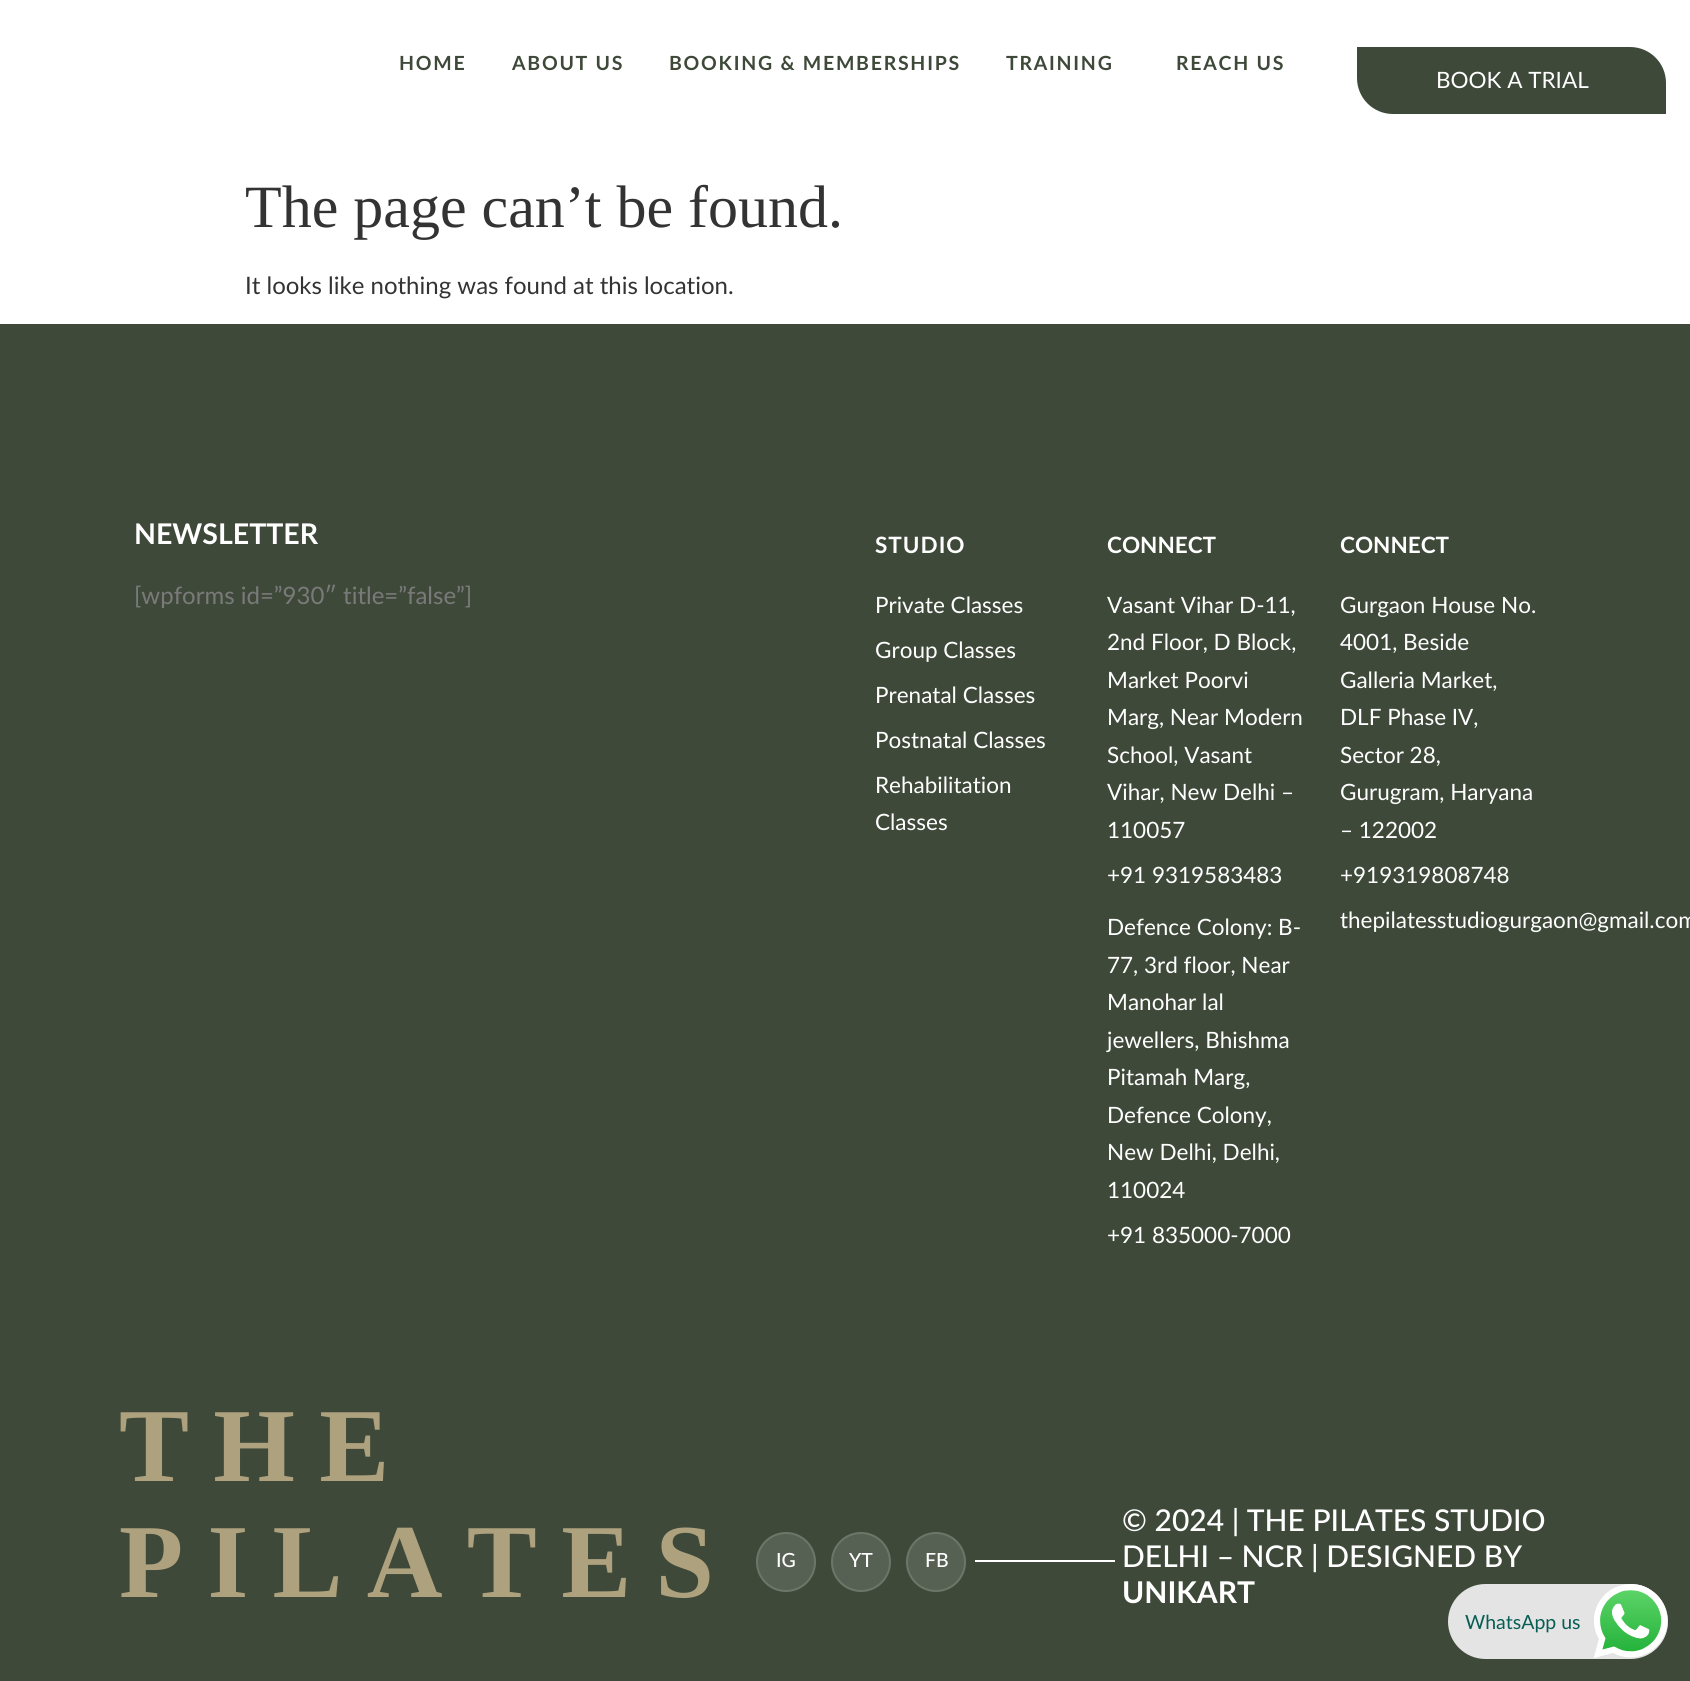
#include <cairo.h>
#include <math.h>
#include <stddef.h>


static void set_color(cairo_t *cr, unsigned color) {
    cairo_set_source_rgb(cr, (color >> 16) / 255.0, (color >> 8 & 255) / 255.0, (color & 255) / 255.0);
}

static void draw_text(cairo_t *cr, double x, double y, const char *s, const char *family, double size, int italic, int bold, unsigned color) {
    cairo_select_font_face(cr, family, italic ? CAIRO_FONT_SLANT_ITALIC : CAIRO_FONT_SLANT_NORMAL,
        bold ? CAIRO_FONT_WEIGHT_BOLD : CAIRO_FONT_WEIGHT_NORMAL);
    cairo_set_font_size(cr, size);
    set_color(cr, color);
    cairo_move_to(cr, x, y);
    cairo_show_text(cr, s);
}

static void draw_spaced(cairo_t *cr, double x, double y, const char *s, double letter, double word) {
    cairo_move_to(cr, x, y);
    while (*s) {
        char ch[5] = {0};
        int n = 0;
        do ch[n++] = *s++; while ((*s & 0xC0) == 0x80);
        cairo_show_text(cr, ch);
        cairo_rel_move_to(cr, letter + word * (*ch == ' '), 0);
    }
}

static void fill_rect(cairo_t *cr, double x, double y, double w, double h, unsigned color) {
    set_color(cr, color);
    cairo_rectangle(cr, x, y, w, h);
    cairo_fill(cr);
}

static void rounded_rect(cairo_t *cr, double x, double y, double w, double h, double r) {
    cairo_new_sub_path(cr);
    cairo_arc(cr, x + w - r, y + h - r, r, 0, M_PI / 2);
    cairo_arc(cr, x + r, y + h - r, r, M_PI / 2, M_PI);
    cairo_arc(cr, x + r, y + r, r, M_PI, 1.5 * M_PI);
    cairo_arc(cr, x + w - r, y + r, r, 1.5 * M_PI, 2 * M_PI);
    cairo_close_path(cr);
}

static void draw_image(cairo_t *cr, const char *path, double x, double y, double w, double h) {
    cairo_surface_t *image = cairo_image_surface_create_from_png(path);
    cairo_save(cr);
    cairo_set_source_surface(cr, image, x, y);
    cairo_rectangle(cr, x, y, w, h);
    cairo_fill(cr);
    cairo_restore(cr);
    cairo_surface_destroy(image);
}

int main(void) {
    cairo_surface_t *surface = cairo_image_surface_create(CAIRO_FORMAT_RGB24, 1690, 1681);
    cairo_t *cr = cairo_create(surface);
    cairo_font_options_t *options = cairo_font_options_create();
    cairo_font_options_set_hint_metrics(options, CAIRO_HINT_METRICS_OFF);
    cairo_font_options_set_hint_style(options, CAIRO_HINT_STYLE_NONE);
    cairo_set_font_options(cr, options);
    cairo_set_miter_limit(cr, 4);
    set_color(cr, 0xFFFFFF);
    cairo_paint(cr);
    cairo_select_font_face(cr, "Lato", CAIRO_FONT_SLANT_NORMAL, CAIRO_FONT_WEIGHT_BOLD);
    cairo_set_font_size(cr, 19.5);
    set_color(cr, 0x3E4939);
    draw_spaced(cr, 399, 70, "HOME", 1.75, 0);
    draw_spaced(cr, 512, 70, "ABOUT US", 1.75, 0);
    draw_spaced(cr, 669, 70, "BOOKING & MEMBERSHIPS", 1.75, 0);
    draw_spaced(cr, 1006, 70, "TRAINING", 1.75, 0);
    draw_spaced(cr, 1176, 70, "REACH US", 1.75, 0);
    cairo_new_path(cr);
    cairo_move_to(cr, 1356, 46);
    cairo_line_to(cr, 1630, 46);
    cairo_curve_to(cr, 1650.5, 46, 1667, 62.5, 1667, 83);
    cairo_line_to(cr, 1667, 115);
    cairo_line_to(cr, 1393, 115);
    cairo_curve_to(cr, 1372.5, 115, 1356, 98.5, 1356, 78);
    cairo_close_path(cr);
    cairo_fill_preserve(cr);
    set_color(cr, 0xFFFFFF);
    cairo_stroke(cr);
    draw_text(cr, 1436, 88, "BOOK A TRIAL", "Lato", 22.5, 0, 0, 0xFFFFFF);
    draw_text(cr, 245, 227, "The page can’t be found.", "Liberation Serif", 60, 0, 0, 0x333333);
    draw_text(cr, 245, 294, "It looks like nothing was found at this location.", "Lato", 24, 0, 0, 0x333333);
    fill_rect(cr, 0, 324, 1690, 1357, 0x3E4939);
    draw_text(cr, 134, 544, "NEWSLETTER", "Lato", 28.5, 0, 1, 0xFFFFFF);
    draw_text(cr, 134, 604, "[wpforms id=”930″ title=”false”]", "Lato", 24, 0, 0, 0x7A7A7A);
    cairo_select_font_face(cr, "Lato", CAIRO_FONT_SLANT_NORMAL, CAIRO_FONT_WEIGHT_BOLD);
    cairo_set_font_size(cr, 22.5);
    set_color(cr, 0xFFFFFF);
    draw_spaced(cr, 875, 553, "STUDIO", 1, 0);
    draw_text(cr, 875, 613, "Private Classes", "Lato", 22.5, 0, 0, 0xFFFFFF);
    draw_text(cr, 875, 658, "Group Classes", "Lato", 22.5, 0, 0, 0xFFFFFF);
    draw_text(cr, 875, 703, "Prenatal Classes", "Lato", 22.5, 0, 0, 0xFFFFFF);
    draw_text(cr, 875, 748, "Postnatal Classes", "Lato", 22.5, 0, 0, 0xFFFFFF);
    draw_text(cr, 875, 793, "Rehabilitation", "Lato", 22.5, 0, 0, 0xFFFFFF);
    draw_text(cr, 875, 830, "Classes", "Lato", 22.5, 0, 0, 0xFFFFFF);
    draw_text(cr, 1107, 553, "CONNECT", "Lato", 22.5, 0, 1, 0xFFFFFF);
    draw_text(cr, 1107, 613, "Vasant Vihar D-11,", "Lato", 22.5, 0, 0, 0xFFFFFF);
    draw_text(cr, 1107, 650, "2nd Floor, D Block,", "Lato", 22.5, 0, 0, 0xFFFFFF);
    draw_text(cr, 1107, 688, "Market Poorvi", "Lato", 22.5, 0, 0, 0xFFFFFF);
    draw_text(cr, 1107, 725, "Marg, Near Modern", "Lato", 22.5, 0, 0, 0xFFFFFF);
    draw_text(cr, 1107, 763, "School, Vasant", "Lato", 22.5, 0, 0, 0xFFFFFF);
    draw_text(cr, 1107, 800, "Vihar, New Delhi –", "Lato", 22.5, 0, 0, 0xFFFFFF);
    draw_text(cr, 1107, 838, "110057", "Lato", 22.5, 0, 0, 0xFFFFFF);
    draw_text(cr, 1107, 883, "+91 9319583483", "Lato", 22.5, 0, 0, 0xFFFFFF);
    draw_text(cr, 1107, 935, "Defence Colony: B-", "Lato", 22.5, 0, 0, 0xFFFFFF);
    draw_text(cr, 1107, 973, "77, 3rd floor, Near", "Lato", 22.5, 0, 0, 0xFFFFFF);
    draw_text(cr, 1107, 1010, "Manohar lal", "Lato", 22.5, 0, 0, 0xFFFFFF);
    draw_text(cr, 1107, 1048, "jewellers, Bhishma", "Lato", 22.5, 0, 0, 0xFFFFFF);
    draw_text(cr, 1107, 1085, "Pitamah Marg,", "Lato", 22.5, 0, 0, 0xFFFFFF);
    draw_text(cr, 1107, 1123, "Defence Colony,", "Lato", 22.5, 0, 0, 0xFFFFFF);
    draw_text(cr, 1107, 1160, "New Delhi, Delhi,", "Lato", 22.5, 0, 0, 0xFFFFFF);
    draw_text(cr, 1107, 1198, "110024", "Lato", 22.5, 0, 0, 0xFFFFFF);
    draw_text(cr, 1107, 1243, "+91 835000-7000", "Lato", 22.5, 0, 0, 0xFFFFFF);
    draw_text(cr, 1340, 553, "CONNECT", "Lato", 22.5, 0, 1, 0xFFFFFF);
    draw_text(cr, 1340, 613, "Gurgaon House No.", "Lato", 22.5, 0, 0, 0xFFFFFF);
    draw_text(cr, 1340, 650, "4001, Beside", "Lato", 22.5, 0, 0, 0xFFFFFF);
    draw_text(cr, 1340, 688, "Galleria Market,", "Lato", 22.5, 0, 0, 0xFFFFFF);
    draw_text(cr, 1340, 725, "DLF Phase IV,", "Lato", 22.5, 0, 0, 0xFFFFFF);
    draw_text(cr, 1340, 763, "Sector 28,", "Lato", 22.5, 0, 0, 0xFFFFFF);
    draw_text(cr, 1340, 800, "Gurugram, Haryana", "Lato", 22.5, 0, 0, 0xFFFFFF);
    draw_text(cr, 1340, 838, "– 122002", "Lato", 22.5, 0, 0, 0xFFFFFF);
    draw_text(cr, 1340, 883, "+919319808748", "Lato", 22.5, 0, 0, 0xFFFFFF);
    draw_text(cr, 1340, 928, "thepilatesstudiogurgaon@gmail.com", "Lato", 22.5, 0, 0, 0xFFFFFF);
    cairo_select_font_face(cr, "Liberation Serif", CAIRO_FONT_SLANT_NORMAL, CAIRO_FONT_WEIGHT_BOLD);
    cairo_set_font_size(cr, 105);
    set_color(cr, 0xAEA17E);
    draw_spaced(cr, 119, 1481, "THE", 24.25, 0);
    draw_spaced(cr, 119, 1597, "PILATES", 24.25, 0);
    set_color(cr, 0x576153);
    cairo_new_path(cr);
    cairo_arc(cr, 786, 1562, 30, 0, 2 * M_PI);
    cairo_fill(cr);
    cairo_arc(cr, 786, 1562, 29, 0, 2 * M_PI);
    cairo_set_source_rgba(cr, 1, 1, 1, 0.13);
    cairo_stroke(cr);
    draw_text(cr, 776, 1567, "IG", "Lato Medium", 19.5, 0, 0, 0xFFFFFF);
    set_color(cr, 0x576153);
    cairo_new_path(cr);
    cairo_arc(cr, 861, 1562, 30, 0, 2 * M_PI);
    cairo_fill(cr);
    cairo_arc(cr, 861, 1562, 29, 0, 2 * M_PI);
    cairo_set_source_rgba(cr, 1, 1, 1, 0.13);
    cairo_stroke(cr);
    draw_text(cr, 849, 1567, "YT", "Lato Medium", 19.5, 0, 0, 0xFFFFFF);
    set_color(cr, 0x576153);
    cairo_new_path(cr);
    cairo_arc(cr, 936, 1562, 30, 0, 2 * M_PI);
    cairo_fill(cr);
    cairo_arc(cr, 936, 1562, 29, 0, 2 * M_PI);
    cairo_set_source_rgba(cr, 1, 1, 1, 0.13);
    cairo_stroke(cr);
    draw_text(cr, 925, 1567, "FB", "Lato Medium", 19.5, 0, 0, 0xFFFFFF);
    fill_rect(cr, 975, 1560, 140, 2, 0xFFFFFF);
    draw_text(cr, 1122, 1531, "© 2024 | THE PILATES STUDIO", "Lato Medium", 30, 0, 0, 0xFFFFFF);
    draw_text(cr, 1122, 1567, "DELHI – NCR | DESIGNED BY", "Lato Medium", 30, 0, 0, 0xFFFFFF);
    draw_text(cr, 1122, 1603, "UNIKART", "Lato", 30, 0, 1, 0xFFFFFF);
    set_color(cr, 0xE4E4E4);
    rounded_rect(cr, 1448, 1584, 220, 75, 37.5);
    cairo_fill(cr);
    draw_text(cr, 1465, 1629, "WhatsApp us", "Lato", 19.5, 0, 0, 0x075E54);
    draw_image(cr, "assets/img1.png", 1593, 1584, 75, 75);
    cairo_surface_write_to_png(surface, "output.png");
    cairo_font_options_destroy(options);
    cairo_destroy(cr);
    cairo_surface_destroy(surface);
    return 0;
}
